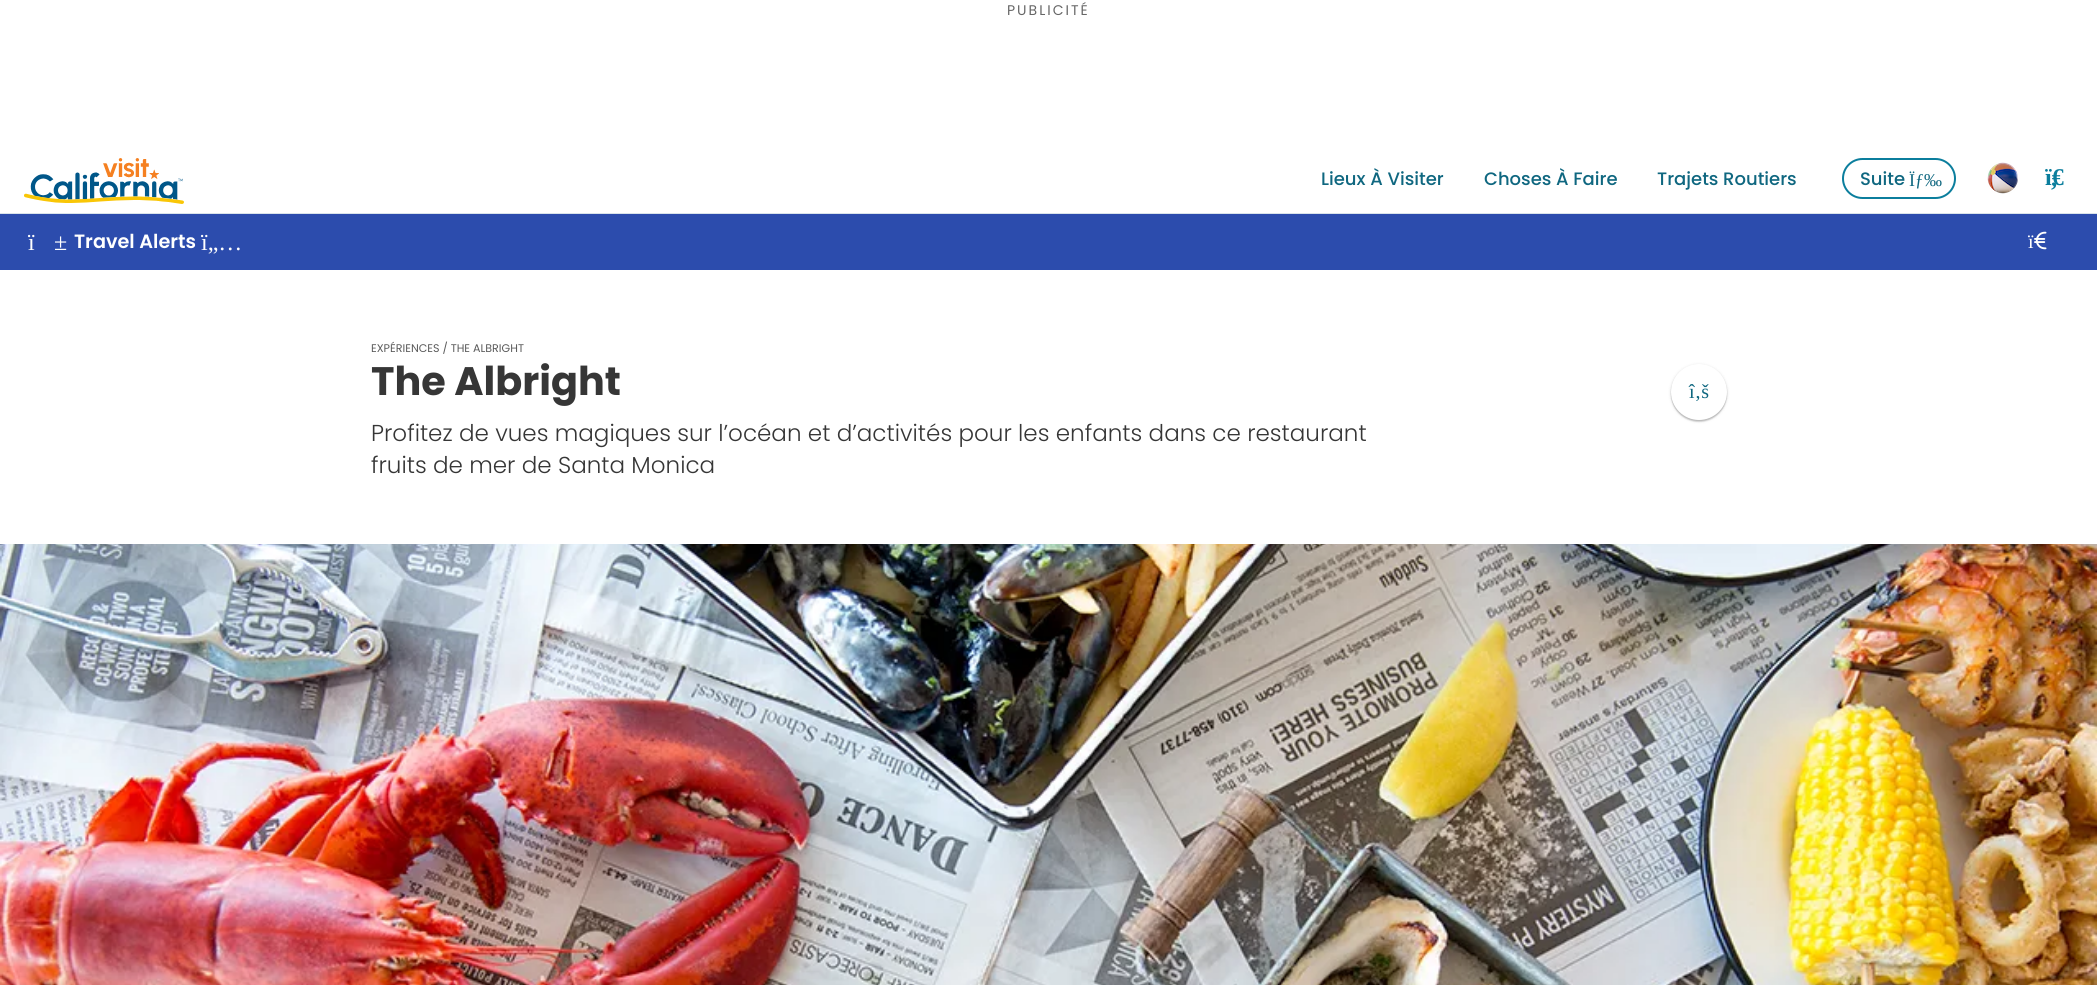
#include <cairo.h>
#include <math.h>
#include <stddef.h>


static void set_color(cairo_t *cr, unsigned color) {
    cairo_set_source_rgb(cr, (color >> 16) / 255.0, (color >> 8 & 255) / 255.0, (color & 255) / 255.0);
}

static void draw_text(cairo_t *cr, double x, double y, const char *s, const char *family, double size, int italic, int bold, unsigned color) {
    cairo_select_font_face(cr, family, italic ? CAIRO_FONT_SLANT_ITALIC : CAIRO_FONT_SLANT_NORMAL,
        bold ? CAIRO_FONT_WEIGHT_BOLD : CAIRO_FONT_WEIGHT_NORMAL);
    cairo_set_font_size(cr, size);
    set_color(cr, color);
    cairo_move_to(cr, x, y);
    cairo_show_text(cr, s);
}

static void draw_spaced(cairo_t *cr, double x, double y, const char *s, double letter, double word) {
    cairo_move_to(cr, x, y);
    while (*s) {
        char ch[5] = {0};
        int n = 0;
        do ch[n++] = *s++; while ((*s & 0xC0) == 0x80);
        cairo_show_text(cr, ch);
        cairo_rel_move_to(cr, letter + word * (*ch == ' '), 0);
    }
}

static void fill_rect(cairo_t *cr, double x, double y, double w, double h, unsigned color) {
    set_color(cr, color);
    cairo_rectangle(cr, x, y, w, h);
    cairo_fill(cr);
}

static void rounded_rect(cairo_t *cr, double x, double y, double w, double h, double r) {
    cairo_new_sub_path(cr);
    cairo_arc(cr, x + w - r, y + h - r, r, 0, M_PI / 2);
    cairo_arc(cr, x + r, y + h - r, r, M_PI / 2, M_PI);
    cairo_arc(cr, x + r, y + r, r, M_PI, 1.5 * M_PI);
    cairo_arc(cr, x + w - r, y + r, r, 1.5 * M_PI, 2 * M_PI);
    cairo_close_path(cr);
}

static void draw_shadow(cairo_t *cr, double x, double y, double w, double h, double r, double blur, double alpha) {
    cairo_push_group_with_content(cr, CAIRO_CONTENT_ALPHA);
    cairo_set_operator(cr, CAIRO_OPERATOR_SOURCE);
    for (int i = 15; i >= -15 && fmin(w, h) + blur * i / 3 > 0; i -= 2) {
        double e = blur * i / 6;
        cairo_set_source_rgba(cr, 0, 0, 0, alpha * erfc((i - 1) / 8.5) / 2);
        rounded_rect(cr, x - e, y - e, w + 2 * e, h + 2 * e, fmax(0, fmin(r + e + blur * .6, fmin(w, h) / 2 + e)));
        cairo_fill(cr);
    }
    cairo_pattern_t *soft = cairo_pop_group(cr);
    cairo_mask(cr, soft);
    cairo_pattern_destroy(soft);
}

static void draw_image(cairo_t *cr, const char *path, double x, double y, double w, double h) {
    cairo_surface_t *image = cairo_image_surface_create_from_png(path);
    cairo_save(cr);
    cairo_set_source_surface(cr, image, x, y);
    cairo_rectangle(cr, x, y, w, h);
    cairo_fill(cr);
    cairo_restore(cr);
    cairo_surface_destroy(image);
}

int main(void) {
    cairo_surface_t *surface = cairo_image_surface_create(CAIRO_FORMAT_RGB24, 2097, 985);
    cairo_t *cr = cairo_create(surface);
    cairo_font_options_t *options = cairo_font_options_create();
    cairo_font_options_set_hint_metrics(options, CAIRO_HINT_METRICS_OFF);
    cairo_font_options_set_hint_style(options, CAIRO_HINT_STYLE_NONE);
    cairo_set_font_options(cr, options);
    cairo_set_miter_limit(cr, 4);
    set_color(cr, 0xFFFFFF);
    cairo_paint(cr);
    cairo_select_font_face(cr, "Poppins", CAIRO_FONT_SLANT_NORMAL, CAIRO_FONT_WEIGHT_NORMAL);
    cairo_set_font_size(cr, 14);
    set_color(cr, 0x666666);
    draw_spaced(cr, 1007, 15, "PUBLICITÉ", 2, 0);
    draw_image(cr, "assets/img1.png", 24, 158, 160, 46);
    draw_text(cr, 1321, 185, "Lieux À Visiter", "Poppins Medium", 18, 0, 0, 0x0F6780);
    draw_text(cr, 1484, 185, "Choses À Faire", "Poppins Medium", 18, 0, 0, 0x0F6780);
    draw_text(cr, 1657, 185, "Trajets Routiers", "Poppins Medium", 18, 0, 0, 0x0F6780);
    rounded_rect(cr, 1843, 159, 112, 39, 19.5);
    set_color(cr, 0x0B7E9D);
    cairo_stroke(cr);
    draw_text(cr, 1860, 185, "Suite", "Poppins Medium", 18, 0, 0, 0x0F6780);
    draw_text(cr, 1909, 186, "Ïƒ‰", "Liberation Serif", 18, 0, 0, 0x0F6780);
    draw_image(cr, "assets/img2.png", 1987, 162, 31, 32);
    draw_text(cr, 2045, 185, "ï€", "Liberation Serif", 24, 0, 1, 0x0B7E9D);
    draw_text(cr, 2050, 186, "‚", "Liberation Serif", 24, 0, 1, 0x0B7E9D);
    fill_rect(cr, 0, 213, 2097, 1, 0xDAE3EA);
    fill_rect(cr, 0, 214, 2097, 56, 0x2C4CAD);
    draw_text(cr, 28, 250, "ï", "Liberation Serif", 24, 0, 0, 0xFFFFFF);
    draw_text(cr, 54, 250, "±", "Liberation Serif", 24, 0, 0, 0xFFFFFF);
    draw_text(cr, 74, 248, "Travel Alerts", "Poppins SemiBold", 19.25, 0, 0, 0xFFFFFF);
    draw_text(cr, 201, 250, "ï„…", "Liberation Serif", 24, 0, 0, 0xFFFFFF);
    draw_text(cr, 2028, 248, "ï", "Liberation Serif", 20, 0, 0, 0xFFFFFF);
    draw_image(cr, "assets/img3.png", 2034, 231, 13, 19);
    draw_text(cr, 371, 352, "EXPÉRIENCES / THE ALBRIGHT", "Poppins", 11.1, 0, 0, 0x595959);
    draw_text(cr, 371, 395, "The Albright", "Poppins", 39.75, 0, 1, 0x363636);
    draw_text(cr, 371, 441, "Profitez de vues magiques sur l’océan et d’activités pour les enfants dans ce restaurant", "Poppins Light", 23.05, 0, 0, 0x363636);
    draw_text(cr, 371, 473, "fruits de mer de Santa Monica", "Poppins Light", 23.05, 0, 0, 0x363636);
    set_color(cr, 0x303030);
    draw_shadow(cr, 1671, 365, 56, 56, 28, 1.5, 0.2);
    draw_shadow(cr, 1671, 366, 56, 56, 28, 0.5, 0.12);
    draw_shadow(cr, 1671, 365, 56, 56, 28, 0.5, 0.14);
    set_color(cr, 0xFFFFFF);
    cairo_arc(cr, 1699, 392, 28, 0, 2 * M_PI);
    cairo_fill(cr);
    draw_text(cr, 1689, 398, "î‚š", "Liberation Serif", 20, 0, 0, 0x0F6780);
    draw_image(cr, "assets/img4.png", 0, 544, 2097, 441);
    cairo_surface_write_to_png(surface, "output.png");
    cairo_font_options_destroy(options);
    cairo_destroy(cr);
    cairo_surface_destroy(surface);
    return 0;
}
